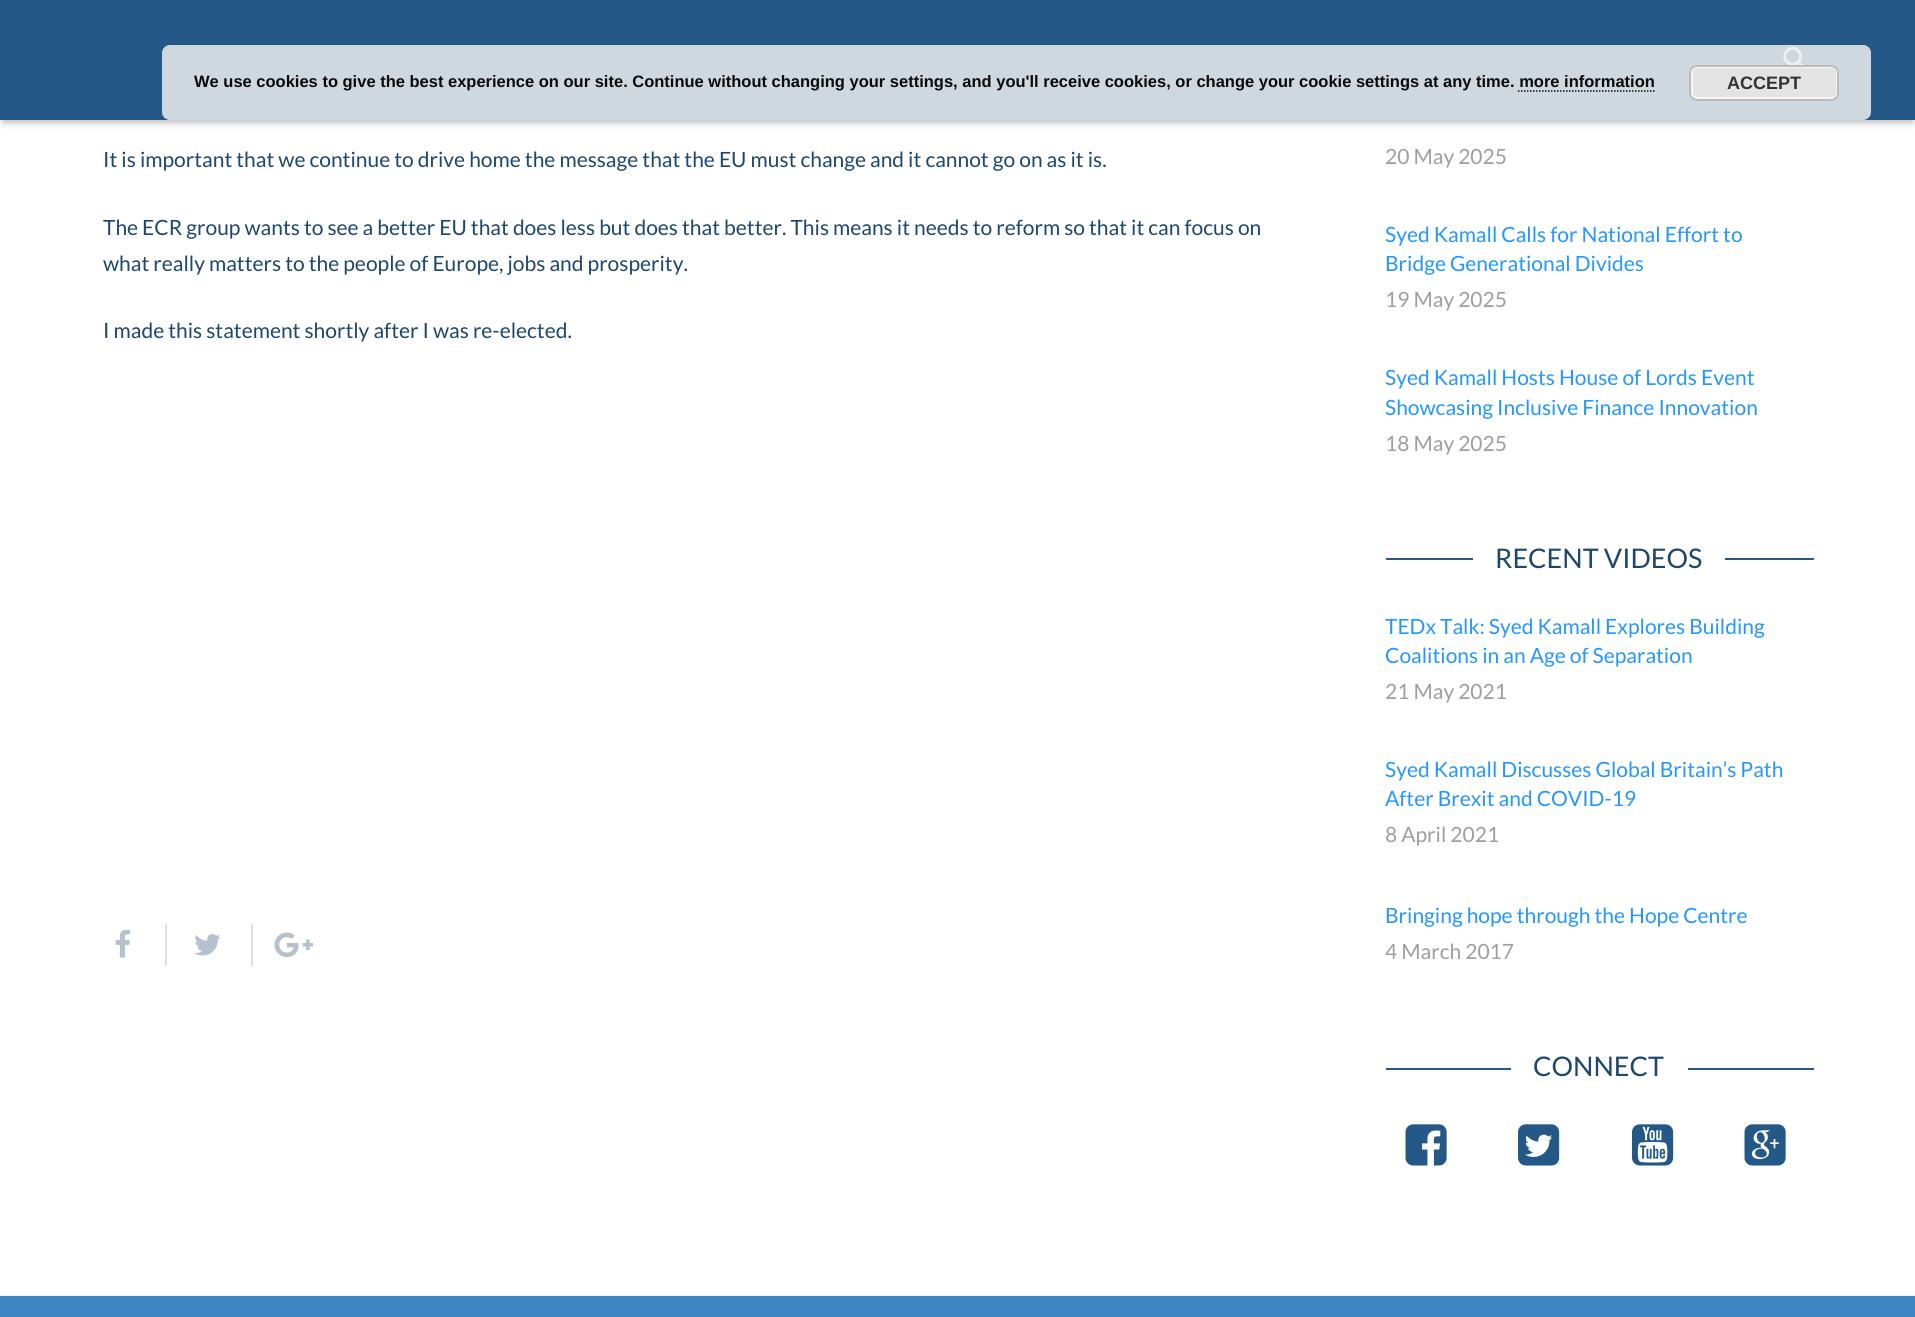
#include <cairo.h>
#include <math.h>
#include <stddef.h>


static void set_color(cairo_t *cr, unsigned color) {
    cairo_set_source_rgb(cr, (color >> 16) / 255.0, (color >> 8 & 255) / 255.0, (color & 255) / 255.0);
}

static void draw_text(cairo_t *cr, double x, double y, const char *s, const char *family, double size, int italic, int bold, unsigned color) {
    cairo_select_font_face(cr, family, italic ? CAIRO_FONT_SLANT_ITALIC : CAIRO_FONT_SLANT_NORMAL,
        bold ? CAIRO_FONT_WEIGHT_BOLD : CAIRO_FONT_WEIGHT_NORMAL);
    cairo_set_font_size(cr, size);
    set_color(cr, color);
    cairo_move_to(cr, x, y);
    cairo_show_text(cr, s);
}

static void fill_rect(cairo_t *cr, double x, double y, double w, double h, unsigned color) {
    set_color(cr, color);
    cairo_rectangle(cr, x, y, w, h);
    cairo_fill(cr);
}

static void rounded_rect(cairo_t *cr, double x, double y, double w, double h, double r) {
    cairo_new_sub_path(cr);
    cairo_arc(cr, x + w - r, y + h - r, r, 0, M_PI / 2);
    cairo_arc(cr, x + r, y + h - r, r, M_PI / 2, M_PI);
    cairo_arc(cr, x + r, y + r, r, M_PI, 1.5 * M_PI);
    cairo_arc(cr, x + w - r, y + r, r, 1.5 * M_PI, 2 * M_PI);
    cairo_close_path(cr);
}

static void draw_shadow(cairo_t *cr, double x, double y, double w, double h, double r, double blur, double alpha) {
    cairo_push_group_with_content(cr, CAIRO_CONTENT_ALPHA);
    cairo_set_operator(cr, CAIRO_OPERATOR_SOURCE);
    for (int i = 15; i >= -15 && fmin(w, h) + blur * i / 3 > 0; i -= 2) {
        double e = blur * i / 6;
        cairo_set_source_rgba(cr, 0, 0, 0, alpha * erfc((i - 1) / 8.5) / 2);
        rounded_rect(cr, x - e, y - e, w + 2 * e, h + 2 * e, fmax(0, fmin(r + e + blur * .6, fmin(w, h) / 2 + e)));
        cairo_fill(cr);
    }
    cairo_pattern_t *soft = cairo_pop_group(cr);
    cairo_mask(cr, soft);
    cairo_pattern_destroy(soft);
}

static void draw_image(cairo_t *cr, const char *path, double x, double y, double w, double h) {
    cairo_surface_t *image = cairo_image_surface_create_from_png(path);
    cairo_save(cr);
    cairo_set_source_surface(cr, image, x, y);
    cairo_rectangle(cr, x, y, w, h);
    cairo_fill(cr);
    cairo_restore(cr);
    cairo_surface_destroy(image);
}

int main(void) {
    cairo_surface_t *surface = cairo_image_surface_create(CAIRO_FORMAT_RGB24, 1915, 1317);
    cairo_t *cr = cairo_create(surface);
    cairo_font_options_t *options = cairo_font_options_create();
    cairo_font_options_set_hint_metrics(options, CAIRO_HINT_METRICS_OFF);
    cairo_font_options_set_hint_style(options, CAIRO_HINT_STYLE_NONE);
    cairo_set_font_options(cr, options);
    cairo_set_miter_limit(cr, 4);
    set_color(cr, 0xFFFFFF);
    cairo_paint(cr);
    set_color(cr, 0x000000);
    draw_shadow(cr, 2, 5, 1912, 117, 0, 1, 0.05);
    draw_shadow(cr, 3, 9, 1910, 114, 0, 4, 0.22);
    fill_rect(cr, 0, 0, 1915, 120, 0x245987);
    draw_image(cr, "assets/img1.png", 1783, 47, 21, 18);
    cairo_set_source_rgba(cr, 0.937, 0.937, 0.937, 0.85);
    rounded_rect(cr, 162, 45, 1709, 75, 8);
    cairo_fill(cr);
    draw_text(cr, 194, 87, "We use cookies to give the best experience on our site. Continue without changing your settings, and you'll receive cookies, or change your cookie settings at any time. more information", "Liberation Sans", 16.5, 0, 1, 0x0A0A0A);
    set_color(cr, 0xE3E3E3);
    rounded_rect(cr, 1689, 65, 150, 36, 8);
    cairo_fill(cr);
    rounded_rect(cr, 1692, 67, 145, 31, 5);
    set_color(cr, 0xF6F6F6);
    cairo_stroke(cr);
    rounded_rect(cr, 1690, 66, 148, 34, 7);
    set_color(cr, 0xBBBBBB);
    cairo_stroke(cr);
    draw_text(cr, 1727, 89, "ACCEPT", "Liberation Sans", 18, 0, 1, 0x333333);
    cairo_new_path(cr);
    cairo_move_to(cr, 1518, 91);
    cairo_line_to(cr, 1654.5, 91);
    set_color(cr, 0x0A0A0A);
    cairo_set_line_width(cr, 1.5);
    cairo_set_dash(cr, (double[]){1.5, 1.5}, 2, 0);
    cairo_stroke(cr);
    draw_text(cr, 103, 167, "It is important that we continue to drive home the message that the EU must change and it cannot go on as it is.", "Lato", 21, 0, 0, 0x1D476B);
    draw_text(cr, 103, 235, "The ECR group wants to see a better EU that does less but does that better. This means it needs to reform so that it can focus on", "Lato", 21, 0, 0, 0x1D476B);
    draw_text(cr, 103, 271, "what really matters to the people of Europe, jobs and prosperity.", "Lato", 21, 0, 0, 0x1D476B);
    draw_text(cr, 103, 338, "I made this statement shortly after I was re-elected.", "Lato", 21, 0, 0, 0x1D476B);
    fill_rect(cr, 165, 924, 2, 42, 0xE0E0E0);
    draw_image(cr, "assets/img2.png", 115, 929, 15, 29);
    fill_rect(cr, 251, 924, 2, 42, 0xE0E0E0);
    draw_image(cr, "assets/img3.png", 194, 934, 27, 22);
    draw_image(cr, "assets/img4.png", 274, 932, 40, 25);
    draw_text(cr, 1385, 164, "20 May 2025", "Lato", 21, 0, 0, 0x9E9E9E);
    draw_text(cr, 1385, 242, "Syed Kamall Calls for National Effort to", "Lato", 21, 0, 0, 0x2597FA);
    draw_text(cr, 1385, 271, "Bridge Generational Divides", "Lato", 21, 0, 0, 0x2597FA);
    draw_text(cr, 1385, 307, "19 May 2025", "Lato", 21, 0, 0, 0x9E9E9E);
    draw_text(cr, 1385, 385, "Syed Kamall Hosts House of Lords Event", "Lato", 21, 0, 0, 0x2597FA);
    draw_text(cr, 1385, 415, "Showcasing Inclusive Finance Innovation", "Lato", 21, 0, 0, 0x2597FA);
    draw_text(cr, 1385, 451, "18 May 2025", "Lato", 21, 0, 0, 0x9E9E9E);
    fill_rect(cr, 1386, 558, 87, 2, 0x245987);
    draw_text(cr, 1495, 568, "RECENT VIDEOS", "Lato", 27, 0, 0, 0x1D476B);
    fill_rect(cr, 1725, 558, 89, 2, 0x245987);
    draw_text(cr, 1385, 634, "TEDx Talk: Syed Kamall Explores Building", "Lato", 21, 0, 0, 0x2597FA);
    draw_text(cr, 1385, 663, "Coalitions in an Age of Separation", "Lato", 21, 0, 0, 0x2597FA);
    draw_text(cr, 1385, 699, "21 May 2021", "Lato", 21, 0, 0, 0x9E9E9E);
    draw_text(cr, 1385, 777, "Syed Kamall Discusses Global Britain’s Path", "Lato", 21, 0, 0, 0x2597FA);
    draw_text(cr, 1385, 806, "After Brexit and COVID-19", "Lato", 21, 0, 0, 0x2597FA);
    draw_text(cr, 1385, 842, "8 April 2021", "Lato", 21, 0, 0, 0x9E9E9E);
    draw_text(cr, 1385, 923, "Bringing hope through the Hope Centre", "Lato", 21, 0, 0, 0x2597FA);
    draw_text(cr, 1385, 959, "4 March 2017", "Lato", 21, 0, 0, 0x9E9E9E);
    fill_rect(cr, 1386, 1068, 125, 2, 0x245987);
    draw_text(cr, 1533, 1076, "CONNECT", "Lato", 27, 0, 0, 0x1D476B);
    fill_rect(cr, 1688, 1068, 126, 2, 0x245987);
    draw_image(cr, "assets/img5.png", 1405, 1124, 42, 42);
    draw_image(cr, "assets/img6.png", 1518, 1124, 42, 42);
    draw_image(cr, "assets/img7.png", 1632, 1124, 42, 42);
    draw_image(cr, "assets/img8.png", 1744, 1124, 42, 42);
    set_color(cr, 0x000000);
    draw_shadow(cr, 0, 1299, 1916, 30, 0, 4, 0.15);
    fill_rect(cr, 0, 1296, 1915, 21, 0x3D85C3);
    cairo_surface_write_to_png(surface, "output.png");
    cairo_font_options_destroy(options);
    cairo_destroy(cr);
    cairo_surface_destroy(surface);
    return 0;
}
